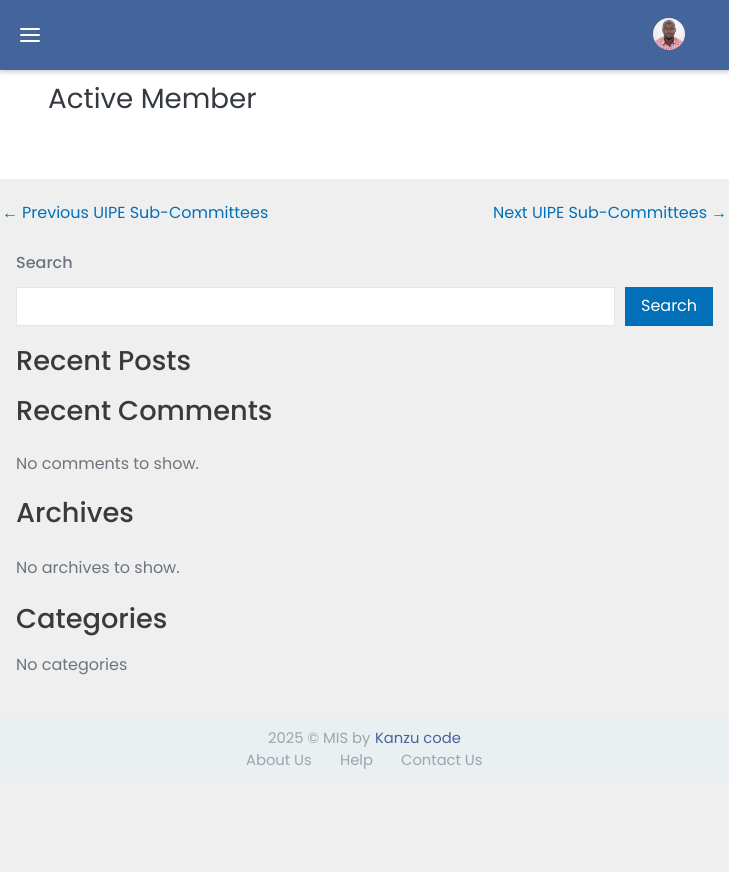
#include <cairo.h>
#include <math.h>
#include <stddef.h>


static void set_color(cairo_t *cr, unsigned color) {
    cairo_set_source_rgb(cr, (color >> 16) / 255.0, (color >> 8 & 255) / 255.0, (color & 255) / 255.0);
}

static void draw_text(cairo_t *cr, double x, double y, const char *s, const char *family, double size, int italic, int bold, unsigned color) {
    cairo_select_font_face(cr, family, italic ? CAIRO_FONT_SLANT_ITALIC : CAIRO_FONT_SLANT_NORMAL,
        bold ? CAIRO_FONT_WEIGHT_BOLD : CAIRO_FONT_WEIGHT_NORMAL);
    cairo_set_font_size(cr, size);
    set_color(cr, color);
    cairo_move_to(cr, x, y);
    cairo_show_text(cr, s);
}

static void fill_rect(cairo_t *cr, double x, double y, double w, double h, unsigned color) {
    set_color(cr, color);
    cairo_rectangle(cr, x, y, w, h);
    cairo_fill(cr);
}

static void rounded_rect(cairo_t *cr, double x, double y, double w, double h, double r) {
    cairo_new_sub_path(cr);
    cairo_arc(cr, x + w - r, y + h - r, r, 0, M_PI / 2);
    cairo_arc(cr, x + r, y + h - r, r, M_PI / 2, M_PI);
    cairo_arc(cr, x + r, y + r, r, M_PI, 1.5 * M_PI);
    cairo_arc(cr, x + w - r, y + r, r, 1.5 * M_PI, 2 * M_PI);
    cairo_close_path(cr);
}

static void draw_shadow(cairo_t *cr, double x, double y, double w, double h, double r, double blur, double alpha) {
    cairo_push_group_with_content(cr, CAIRO_CONTENT_ALPHA);
    cairo_set_operator(cr, CAIRO_OPERATOR_SOURCE);
    for (int i = 15; i >= -15 && fmin(w, h) + blur * i / 3 > 0; i -= 2) {
        double e = blur * i / 6;
        cairo_set_source_rgba(cr, 0, 0, 0, alpha * erfc((i - 1) / 8.5) / 2);
        rounded_rect(cr, x - e, y - e, w + 2 * e, h + 2 * e, fmax(0, fmin(r + e + blur * .6, fmin(w, h) / 2 + e)));
        cairo_fill(cr);
    }
    cairo_pattern_t *soft = cairo_pop_group(cr);
    cairo_mask(cr, soft);
    cairo_pattern_destroy(soft);
}

static void draw_image(cairo_t *cr, const char *path, double x, double y, double w, double h) {
    cairo_surface_t *image = cairo_image_surface_create_from_png(path);
    cairo_save(cr);
    cairo_set_source_surface(cr, image, x, y);
    cairo_rectangle(cr, x, y, w, h);
    cairo_fill(cr);
    cairo_restore(cr);
    cairo_surface_destroy(image);
}

int main(void) {
    cairo_surface_t *surface = cairo_image_surface_create(CAIRO_FORMAT_RGB24, 729, 872);
    cairo_t *cr = cairo_create(surface);
    cairo_font_options_t *options = cairo_font_options_create();
    cairo_font_options_set_hint_metrics(options, CAIRO_HINT_METRICS_OFF);
    cairo_font_options_set_hint_style(options, CAIRO_HINT_STYLE_NONE);
    cairo_set_font_options(cr, options);
    cairo_set_miter_limit(cr, 4);
    set_color(cr, 0xEFEFEF);
    cairo_paint(cr);
    fill_rect(cr, 0, 70, 729, 109, 0xFFFFFF);
    set_color(cr, 0x000000);
    draw_shadow(cr, 0, 2, 729, 70, 0, 3, 0.12);
    draw_shadow(cr, 2, 4, 725, 66, 0, 3, 0.16);
    fill_rect(cr, 0, 0, 729, 70, 0x44649C);
    draw_image(cr, "assets/img1.png", 20, 28, 20, 14);
    draw_image(cr, "assets/img2.png", 653, 18, 32, 32);
    draw_text(cr, 48, 108, "Active Member", "Poppins", 27.75, 0, 0, 0x343A40);
    draw_text(cr, 2, 218, "←", "Liberation Sans", 16, 0, 0, 0x0170B9);
    draw_text(cr, 22, 218, "Previous UIPE Sub-Committees", "Poppins", 16, 0, 0, 0x0170B9);
    draw_text(cr, 493, 218, "Next UIPE Sub-Committees", "Poppins", 16, 0, 0, 0x0170B9);
    draw_text(cr, 711, 218, "→", "Liberation Sans", 16, 0, 0, 0x0170B9);
    draw_text(cr, 16, 268, "Search", "Poppins Medium", 16, 0, 0, 0x6C757D);
    set_color(cr, 0xFFFFFF);
    cairo_rectangle(cr, 16.5, 287.5, 598, 38);
    cairo_fill_preserve(cr);
    set_color(cr, 0xE5E5E5);
    cairo_set_line_width(cr, 1);
    cairo_stroke(cr);
    fill_rect(cr, 625, 287, 88, 39, 0x0170B9);
    draw_text(cr, 641, 311, "Search", "Poppins", 16, 0, 0, 0xFFFFFF);
    draw_text(cr, 16, 370, "Recent Posts", "Poppins Medium", 27.25, 0, 0, 0x3A3A3A);
    draw_text(cr, 16, 420, "Recent Comments", "Poppins Medium", 27.25, 0, 0, 0x3A3A3A);
    draw_text(cr, 16, 469, "No comments to show.", "Poppins", 16, 0, 0, 0x6C757D);
    draw_text(cr, 16, 522, "Archives", "Poppins Medium", 27.25, 0, 0, 0x3A3A3A);
    draw_text(cr, 16, 573, "No archives to show.", "Poppins", 16, 0, 0, 0x6C757D);
    draw_text(cr, 16, 628, "Categories", "Poppins Medium", 27.25, 0, 0, 0x3A3A3A);
    draw_text(cr, 16, 670, "No categories", "Poppins", 16, 0, 0, 0x6C757D);
    fill_rect(cr, 0, 717, 729, 64, 0xEAEFF2);
    draw_text(cr, 268, 743, "2025 © MIS by", "Poppins", 14.75, 0, 0, 0x98A6AD);
    draw_text(cr, 375, 743, "Kanzu code", "Poppins", 14.75, 0, 0, 0x44649C);
    draw_text(cr, 246, 765, "About Us", "Poppins", 14.75, 0, 0, 0x98A6AD);
    draw_text(cr, 340, 765, "Help", "Poppins", 14.75, 0, 0, 0x98A6AD);
    draw_text(cr, 401, 765, "Contact Us", "Poppins", 14.75, 0, 0, 0x98A6AD);
    cairo_surface_write_to_png(surface, "output.png");
    cairo_font_options_destroy(options);
    cairo_destroy(cr);
    cairo_surface_destroy(surface);
    return 0;
}
